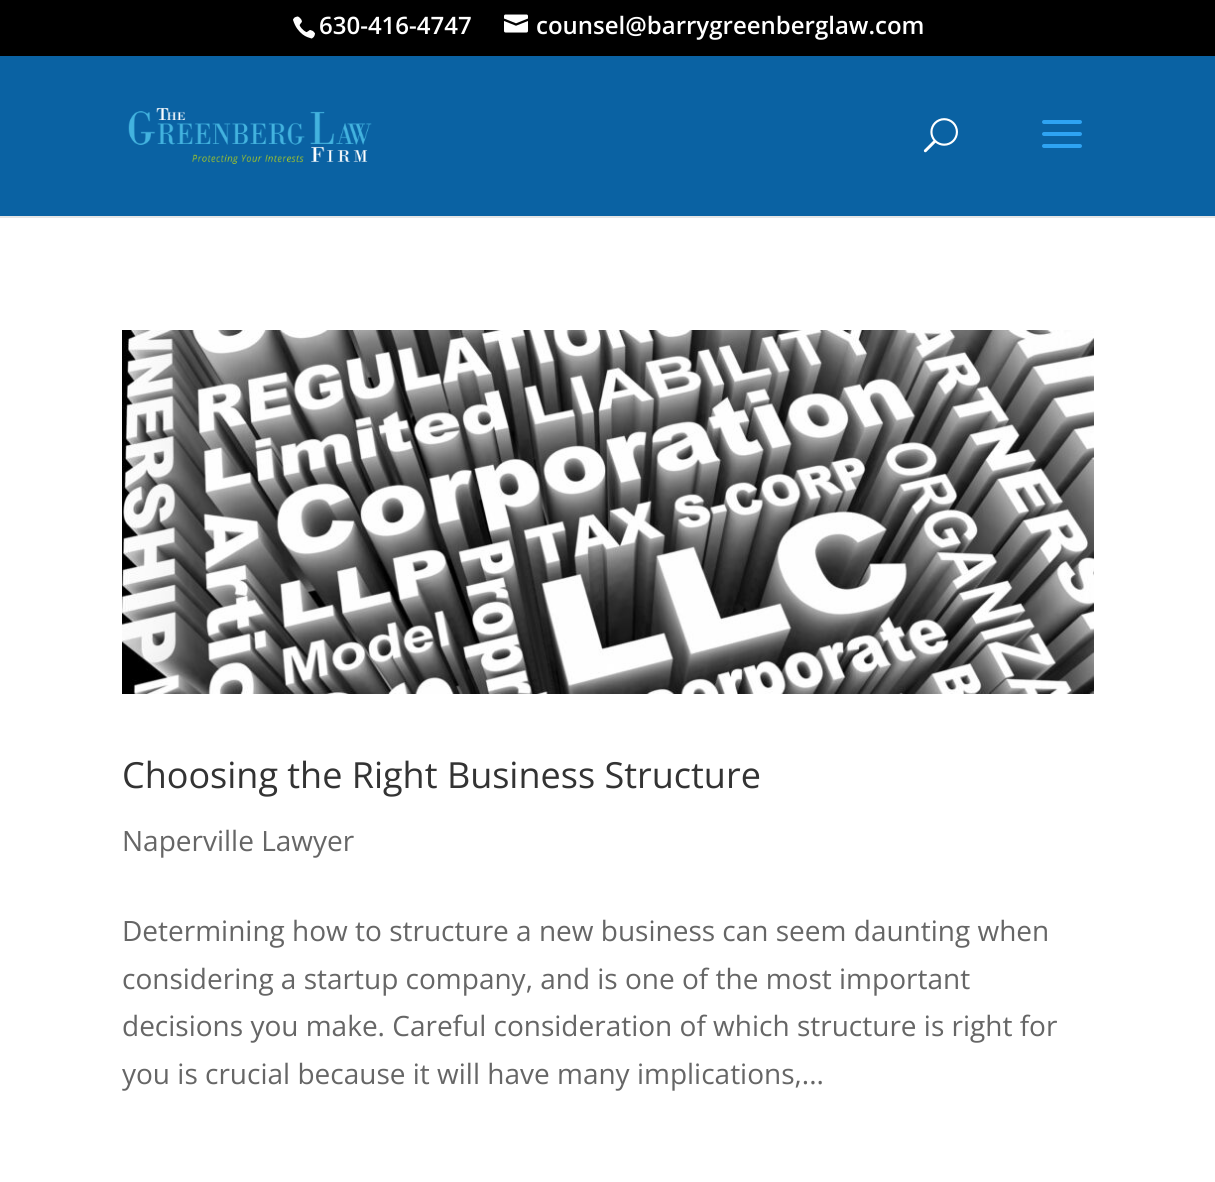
#include <cairo.h>
#include <math.h>
#include <stddef.h>


static void set_color(cairo_t *cr, unsigned color) {
    cairo_set_source_rgb(cr, (color >> 16) / 255.0, (color >> 8 & 255) / 255.0, (color & 255) / 255.0);
}

static void draw_text(cairo_t *cr, double x, double y, const char *s, const char *family, double size, int italic, int bold, unsigned color) {
    cairo_select_font_face(cr, family, italic ? CAIRO_FONT_SLANT_ITALIC : CAIRO_FONT_SLANT_NORMAL,
        bold ? CAIRO_FONT_WEIGHT_BOLD : CAIRO_FONT_WEIGHT_NORMAL);
    cairo_set_font_size(cr, size);
    set_color(cr, color);
    cairo_move_to(cr, x, y);
    cairo_show_text(cr, s);
}

static void fill_rect(cairo_t *cr, double x, double y, double w, double h, unsigned color) {
    set_color(cr, color);
    cairo_rectangle(cr, x, y, w, h);
    cairo_fill(cr);
}

static void draw_image(cairo_t *cr, const char *path, double x, double y, double w, double h) {
    cairo_surface_t *image = cairo_image_surface_create_from_png(path);
    cairo_save(cr);
    cairo_set_source_surface(cr, image, x, y);
    cairo_rectangle(cr, x, y, w, h);
    cairo_fill(cr);
    cairo_restore(cr);
    cairo_surface_destroy(image);
}

int main(void) {
    cairo_surface_t *surface = cairo_image_surface_create(CAIRO_FORMAT_RGB24, 1215, 1182);
    cairo_t *cr = cairo_create(surface);
    cairo_font_options_t *options = cairo_font_options_create();
    cairo_font_options_set_hint_metrics(options, CAIRO_HINT_METRICS_OFF);
    cairo_font_options_set_hint_style(options, CAIRO_HINT_STYLE_NONE);
    cairo_set_font_options(cr, options);
    cairo_set_miter_limit(cr, 4);
    set_color(cr, 0xFFFFFF);
    cairo_paint(cr);
    fill_rect(cr, 0, 0, 1215, 56, 0x000000);
    draw_image(cr, "assets/img1.png", 293, 16, 22, 23);
    draw_text(cr, 319, 34, "630-416-4747", "Open Sans SemiBold", 24, 0, 0, 0xFFFFFF);
    draw_image(cr, "assets/img2.png", 504, 14, 24, 19);
    draw_text(cr, 536, 34, "counsel@barrygreenberglaw.com", "Open Sans SemiBold", 24, 0, 0, 0xFFFFFF);
    fill_rect(cr, 0, 216, 1215, 2, 0xE6E6E6);
    fill_rect(cr, 0, 56, 1215, 160, 0x0A62A3);
    draw_image(cr, "assets/img3.png", 128, 108, 244, 56);
    draw_image(cr, "assets/img4.png", 923, 118, 35, 35);
    draw_image(cr, "assets/img5.png", 1042, 120, 40, 28);
    draw_image(cr, "assets/img6.png", 122, 330, 972, 364);
    draw_text(cr, 122, 788, "Choosing the Right Business Structure", "Open Sans", 36, 0, 0, 0x333333);
    draw_text(cr, 122, 851, "Naperville Lawyer", "Open Sans", 28, 0, 0, 0x666666);
    draw_text(cr, 122, 941, "Determining how to structure a new business can seem daunting when", "Open Sans", 28, 0, 0, 0x666666);
    draw_text(cr, 122, 989, "considering a startup company, and is one of the most important", "Open Sans", 28, 0, 0, 0x666666);
    draw_text(cr, 122, 1036, "decisions you make. Careful consideration of which structure is right for", "Open Sans", 28, 0, 0, 0x666666);
    draw_text(cr, 122, 1084, "you is crucial because it will have many implications,...", "Open Sans", 28, 0, 0, 0x666666);
    cairo_surface_write_to_png(surface, "output.png");
    cairo_font_options_destroy(options);
    cairo_destroy(cr);
    cairo_surface_destroy(surface);
    return 0;
}
